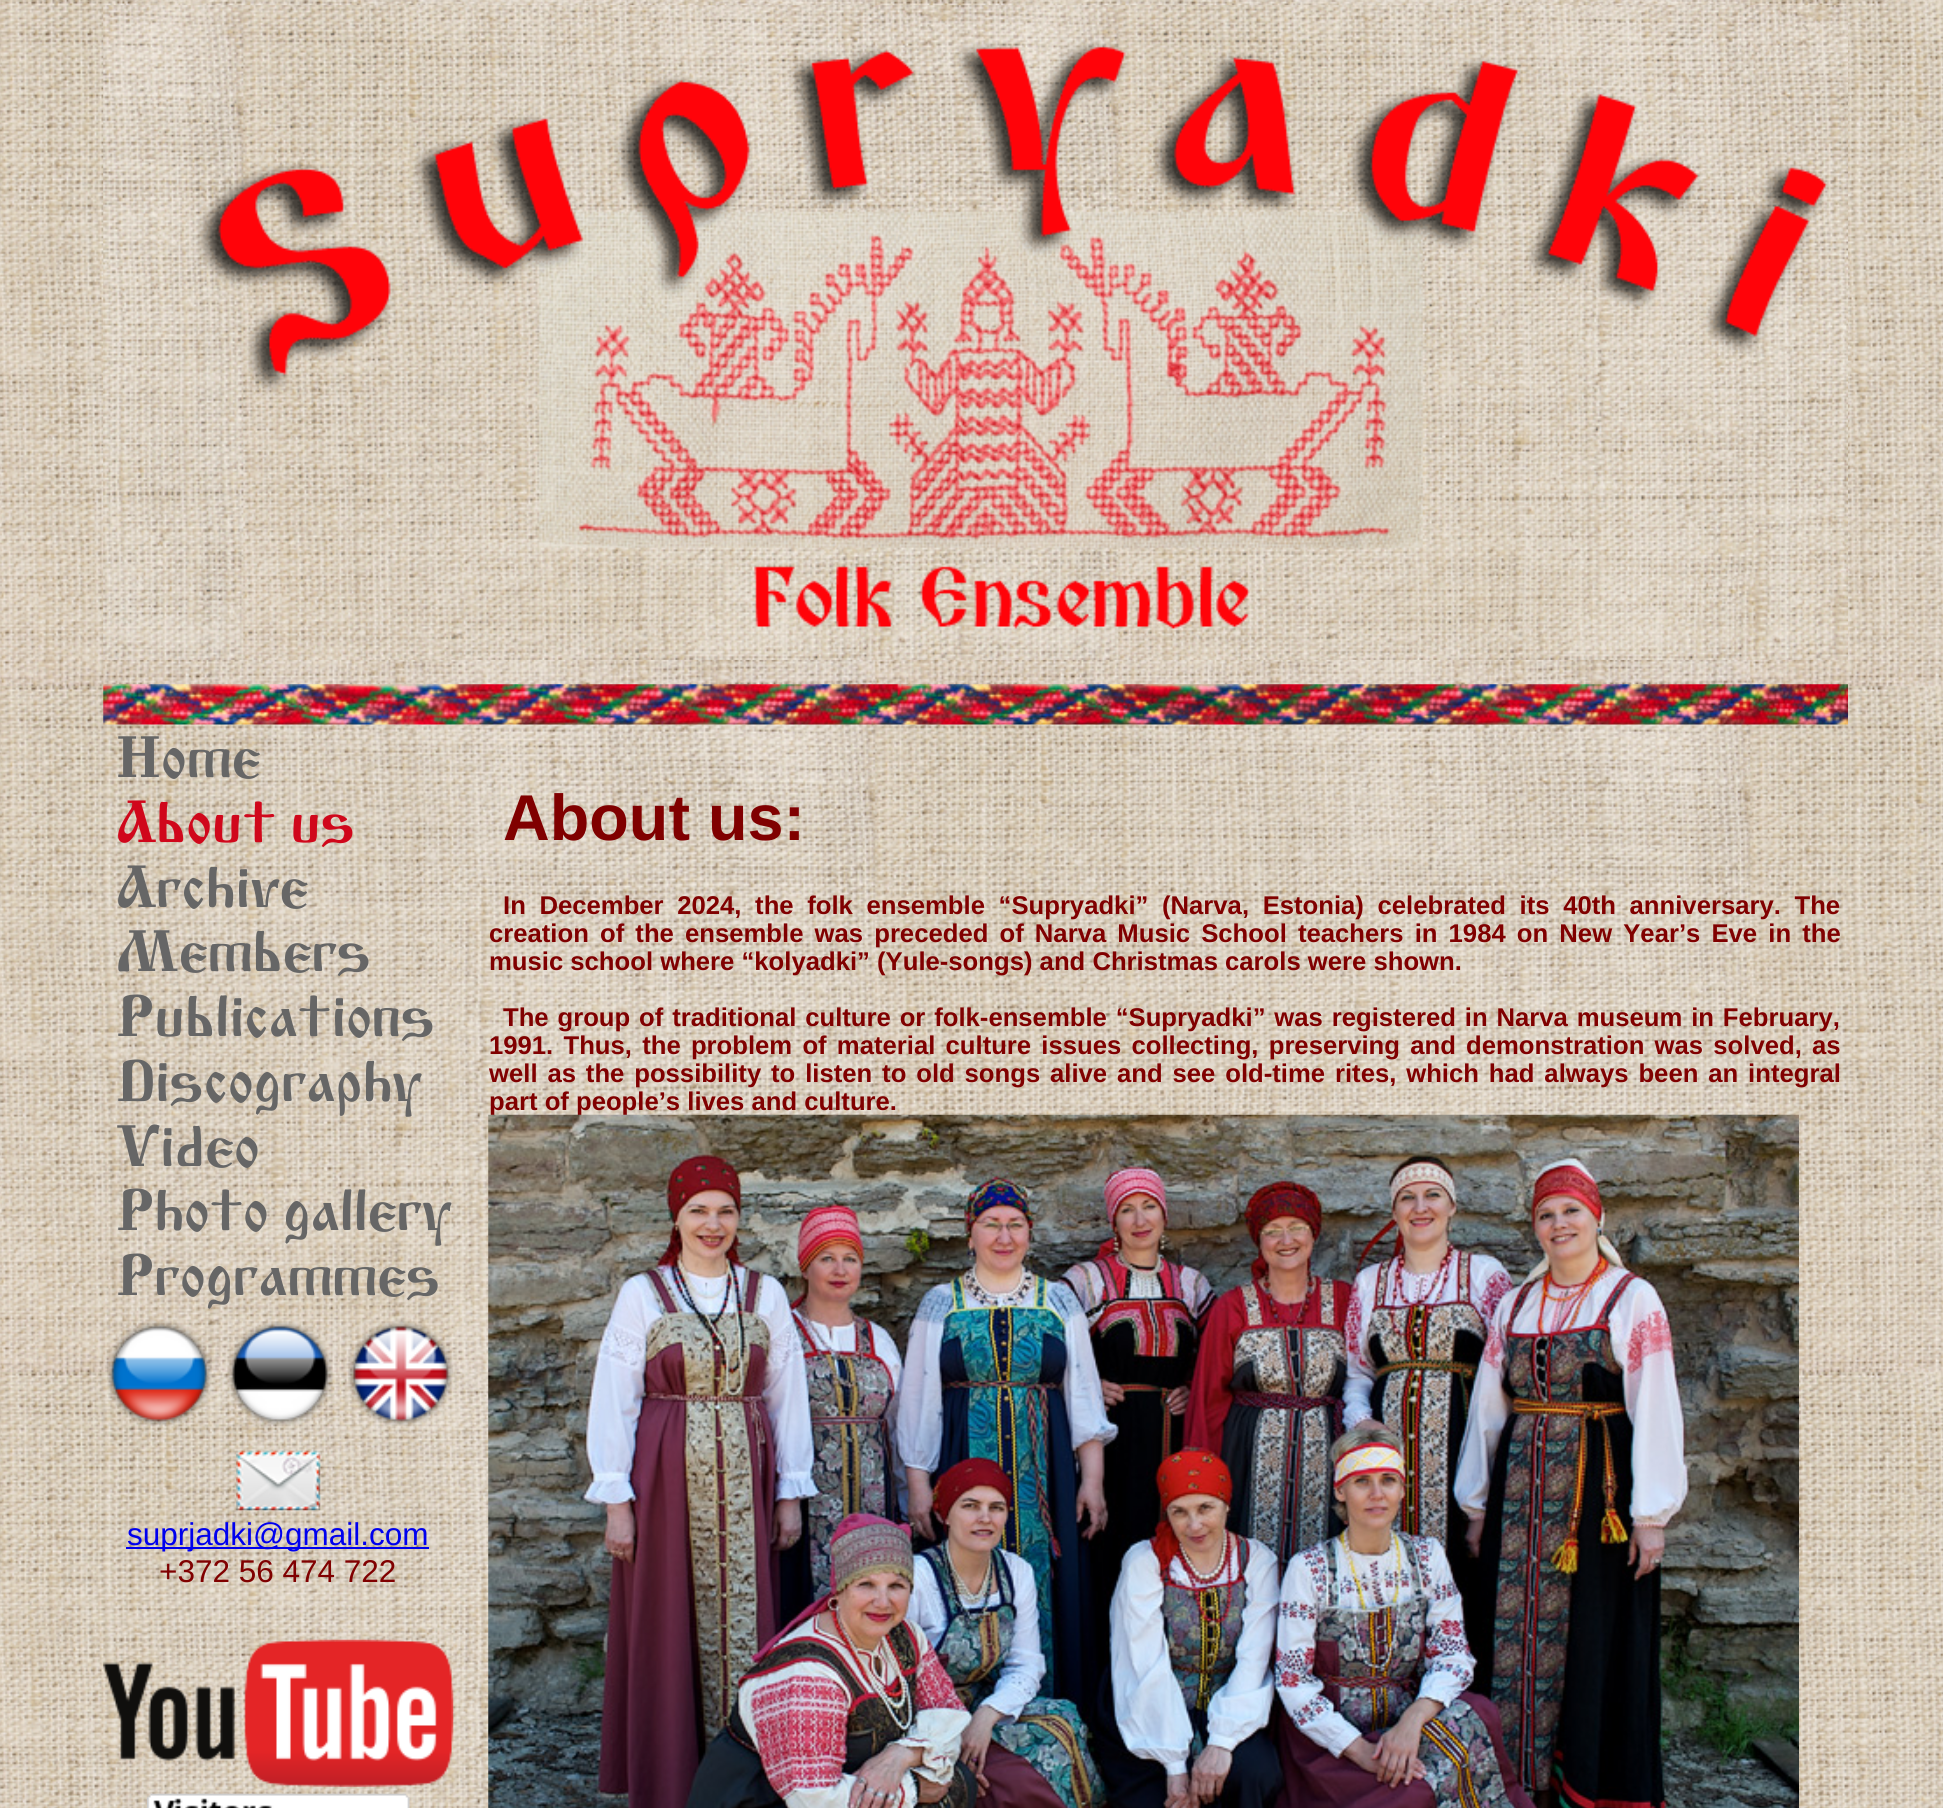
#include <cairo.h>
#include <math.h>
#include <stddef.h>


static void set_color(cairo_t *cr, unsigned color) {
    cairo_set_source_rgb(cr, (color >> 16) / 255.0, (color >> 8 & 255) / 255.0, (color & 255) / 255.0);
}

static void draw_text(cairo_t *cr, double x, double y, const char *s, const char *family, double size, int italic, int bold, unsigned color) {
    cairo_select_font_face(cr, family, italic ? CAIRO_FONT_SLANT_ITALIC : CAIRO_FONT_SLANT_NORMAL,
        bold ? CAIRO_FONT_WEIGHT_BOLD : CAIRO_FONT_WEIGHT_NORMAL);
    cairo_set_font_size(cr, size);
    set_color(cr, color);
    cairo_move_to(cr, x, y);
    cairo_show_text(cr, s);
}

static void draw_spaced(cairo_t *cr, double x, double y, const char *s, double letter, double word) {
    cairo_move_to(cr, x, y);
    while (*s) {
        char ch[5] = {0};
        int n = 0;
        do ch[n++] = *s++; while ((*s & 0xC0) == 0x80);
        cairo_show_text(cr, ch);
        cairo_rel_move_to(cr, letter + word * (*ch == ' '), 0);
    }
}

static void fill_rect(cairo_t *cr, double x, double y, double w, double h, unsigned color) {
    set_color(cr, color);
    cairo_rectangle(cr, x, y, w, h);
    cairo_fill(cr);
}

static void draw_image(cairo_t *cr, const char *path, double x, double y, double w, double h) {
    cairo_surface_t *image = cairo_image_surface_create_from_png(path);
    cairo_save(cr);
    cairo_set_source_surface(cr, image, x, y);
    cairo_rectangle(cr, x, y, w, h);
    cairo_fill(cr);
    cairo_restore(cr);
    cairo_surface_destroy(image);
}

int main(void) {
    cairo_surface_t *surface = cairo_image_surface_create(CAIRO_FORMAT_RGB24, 1943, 1808);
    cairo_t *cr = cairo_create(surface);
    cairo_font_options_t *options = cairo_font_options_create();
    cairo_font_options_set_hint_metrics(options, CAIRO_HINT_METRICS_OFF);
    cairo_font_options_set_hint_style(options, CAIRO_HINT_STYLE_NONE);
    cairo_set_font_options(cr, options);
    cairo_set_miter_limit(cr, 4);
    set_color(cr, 0xFFFFFF);
    cairo_paint(cr);
    draw_image(cr, "assets/img1.png", 0, 0, 1943, 1808);
    draw_image(cr, "assets/img2.png", 103, 5, 1745, 655);
    draw_image(cr, "assets/img3.png", 103, 684, 1745, 41);
    draw_text(cr, 116, 777, "Home", "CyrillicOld", 61.25, 0, 1, 0x666666);
    draw_text(cr, 116, 842, "About us", "CyrillicOld", 61.25, 0, 1, 0xD0071B);
    draw_text(cr, 116, 907, "Archive", "CyrillicOld", 61.25, 0, 1, 0x666666);
    draw_text(cr, 116, 971, "Members", "CyrillicOld", 61.25, 0, 1, 0x666666);
    draw_text(cr, 116, 1036, "Publications", "CyrillicOld", 61.25, 0, 1, 0x666666);
    draw_text(cr, 116, 1101, "Discography", "CyrillicOld", 61.25, 0, 1, 0x666666);
    draw_text(cr, 116, 1166, "Video", "CyrillicOld", 61.25, 0, 1, 0x666666);
    draw_text(cr, 116, 1230, "Photo gallery", "CyrillicOld", 61.25, 0, 1, 0x666666);
    draw_text(cr, 116, 1295, "Programmes", "CyrillicOld", 61.25, 0, 1, 0x666666);
    draw_image(cr, "assets/img4.png", 107, 1321, 105, 105);
    draw_image(cr, "assets/img5.png", 227, 1321, 106, 105);
    draw_image(cr, "assets/img6.png", 348, 1321, 105, 105);
    draw_image(cr, "assets/img7.png", 236, 1450, 85, 61);
    fill_rect(cr, 126, 1547, 303, 2, 0x0000EE);
    draw_text(cr, 127, 1545, "suprjadki@gmail.com", "Liberation Sans", 31.5, 0, 0, 0x0000EE);
    draw_text(cr, 159, 1582, "+372 56 474 722", "Liberation Sans", 31.5, 0, 0, 0x800000);
    draw_image(cr, "assets/img8.png", 103, 1639, 351, 148);
    draw_image(cr, "assets/img9.png", 147, 1793, 263, 15);
    draw_text(cr, 503, 840, "About us:", "Liberation Sans", 64.75, 0, 1, 0x800000);
    cairo_set_font_size(cr, 25.67);
    draw_spaced(cr, 503, 914, "In December 2024, the folk ensemble “Supryadki” (Narva, Estonia) celebrated its 40th anniversary. The", 0, 6.5);
    draw_spaced(cr, 489, 942, "creation of the ensemble was preceded of Narva Music School teachers in 1984 on New Year’s Eve in the", 0, 4);
    draw_text(cr, 489, 970, "music school where “kolyadki” (Yule-songs) and Christmas carols were shown.", "Liberation Sans", 25.67, 0, 1, 0x800000);
    draw_spaced(cr, 503, 1026, "The group of traditional culture or folk-ensemble “Supryadki” was registered in Narva museum in February,", 0, 1.75);
    draw_spaced(cr, 489, 1054, "1991. Thus, the problem of material culture issues collecting, preserving and demonstration was solved, as", 0, 3.1);
    draw_spaced(cr, 489, 1082, "well as the possibility to listen to old songs alive and see old-time rites, which had always been an integral", 0, 2.75);
    draw_text(cr, 489, 1110, "part of people’s lives and culture.", "Liberation Sans", 25.67, 0, 1, 0x800000);
    draw_image(cr, "assets/img10.png", 488, 1114, 1311, 694);
    cairo_surface_write_to_png(surface, "output.png");
    cairo_font_options_destroy(options);
    cairo_destroy(cr);
    cairo_surface_destroy(surface);
    return 0;
}
